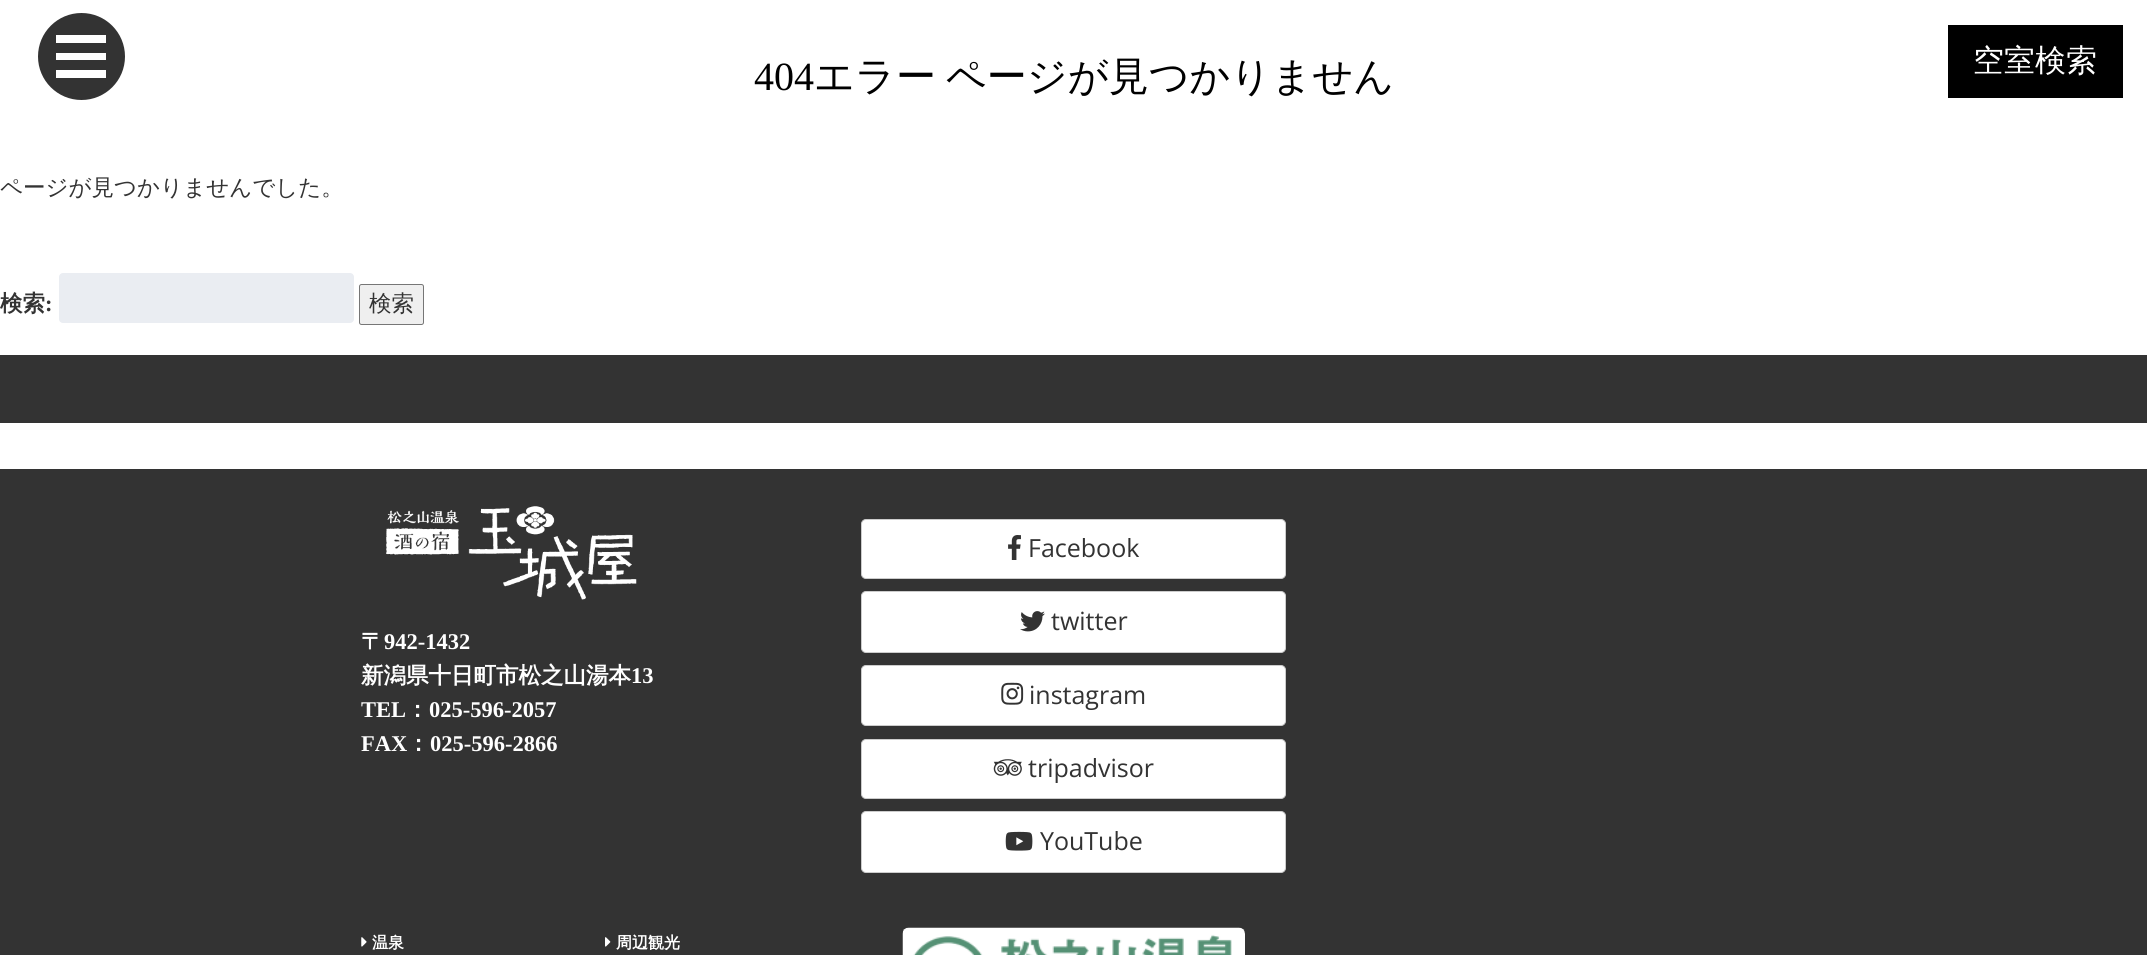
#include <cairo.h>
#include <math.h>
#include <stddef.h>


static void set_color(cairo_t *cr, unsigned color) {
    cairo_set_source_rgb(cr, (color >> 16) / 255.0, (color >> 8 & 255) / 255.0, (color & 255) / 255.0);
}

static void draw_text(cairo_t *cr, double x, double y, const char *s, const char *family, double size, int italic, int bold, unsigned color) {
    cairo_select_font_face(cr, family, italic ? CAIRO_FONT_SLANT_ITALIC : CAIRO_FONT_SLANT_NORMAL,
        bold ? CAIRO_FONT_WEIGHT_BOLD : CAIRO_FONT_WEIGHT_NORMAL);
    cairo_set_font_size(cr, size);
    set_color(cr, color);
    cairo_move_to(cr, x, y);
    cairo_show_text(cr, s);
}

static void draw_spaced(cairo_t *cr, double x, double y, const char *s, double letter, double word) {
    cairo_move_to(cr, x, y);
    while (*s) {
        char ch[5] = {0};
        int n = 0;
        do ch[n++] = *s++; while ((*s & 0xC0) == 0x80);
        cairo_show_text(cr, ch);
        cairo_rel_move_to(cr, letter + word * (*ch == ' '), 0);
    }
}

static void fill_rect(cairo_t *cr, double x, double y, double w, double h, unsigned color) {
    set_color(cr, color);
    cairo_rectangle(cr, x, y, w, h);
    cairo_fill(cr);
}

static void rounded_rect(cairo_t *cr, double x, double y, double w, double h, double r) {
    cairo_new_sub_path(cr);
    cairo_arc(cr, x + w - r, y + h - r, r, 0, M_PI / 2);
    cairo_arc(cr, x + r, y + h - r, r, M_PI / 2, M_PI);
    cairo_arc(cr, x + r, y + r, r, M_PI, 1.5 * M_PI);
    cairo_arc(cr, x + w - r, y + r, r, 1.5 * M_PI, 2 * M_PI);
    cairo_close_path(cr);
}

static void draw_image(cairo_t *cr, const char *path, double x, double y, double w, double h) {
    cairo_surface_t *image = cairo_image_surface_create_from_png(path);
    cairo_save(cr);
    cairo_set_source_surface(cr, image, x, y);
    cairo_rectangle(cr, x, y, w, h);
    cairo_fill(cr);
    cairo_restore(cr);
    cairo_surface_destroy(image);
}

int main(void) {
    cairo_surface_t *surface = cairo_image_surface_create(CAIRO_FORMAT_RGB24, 2147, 955);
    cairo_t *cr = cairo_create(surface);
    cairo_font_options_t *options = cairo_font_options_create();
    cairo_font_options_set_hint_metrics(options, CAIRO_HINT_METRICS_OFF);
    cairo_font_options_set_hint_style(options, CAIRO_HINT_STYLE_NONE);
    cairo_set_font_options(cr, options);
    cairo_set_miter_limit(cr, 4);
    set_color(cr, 0xFFFFFF);
    cairo_paint(cr);
    draw_text(cr, 754, 90, "404", "Liberation Serif", 40, 0, 0, 0x000000);
    cairo_select_font_face(cr, "WenQuanYi Zen Hei Medium", CAIRO_FONT_SLANT_NORMAL, CAIRO_FONT_WEIGHT_NORMAL);
    draw_spaced(cr, 814, 90, "エラー ページが見つかりません", 0, -2);
    draw_text(cr, 0, 195, "ページが見つかりませんでした。", "WenQuanYi Zen Hei Medium", 22.5, 0, 0, 0x333333);
    draw_text(cr, 0, 311, "検索", "WenQuanYi Zen Hei", 22.5, 0, 1, 0x333333);
    draw_text(cr, 45, 311, ":", "Liberation Serif", 22.5, 0, 1, 0x333333);
    set_color(cr, 0xEAEDF2);
    rounded_rect(cr, 59, 273, 295, 50, 4);
    cairo_fill(cr);
    set_color(cr, 0xEFEFEF);
    rounded_rect(cr, 359.5, 284.5, 64, 40, 2);
    cairo_fill_preserve(cr);
    set_color(cr, 0x767676);
    cairo_set_line_width(cr, 1);
    cairo_stroke(cr);
    draw_text(cr, 369, 311, "検索", "WenQuanYi Zen Hei Medium", 22.5, 0, 0, 0x333333);
    fill_rect(cr, 0, 355, 2147, 68, 0x333333);
    cairo_new_path(cr);
    cairo_arc(cr, 81.5, 56.5, 43.5, 0, 2 * M_PI);
    cairo_fill(cr);
    fill_rect(cr, 56, 35, 50, 8, 0xFFFFFF);
    fill_rect(cr, 56, 53, 50, 7, 0xFFFFFF);
    fill_rect(cr, 56, 70, 50, 8, 0xFFFFFF);
    fill_rect(cr, 1948, 25, 175, 73, 0x000000);
    draw_text(cr, 1973, 71, "空室検索", "WenQuanYi Zen Hei Medium", 31, 0, 0, 0xFFFFFF);
    fill_rect(cr, 0, 469, 2147, 486, 0x333333);
    draw_image(cr, "assets/img1.png", 386, 506, 251, 94);
    draw_text(cr, 361, 649, "〒", "WenQuanYi Zen Hei", 22.5, 0, 1, 0xFFFFFF);
    draw_text(cr, 384, 649, "942-1432", "Liberation Serif", 22.5, 0, 1, 0xFFFFFF);
    draw_text(cr, 361, 683, "新潟県十日町市松之山湯本", "WenQuanYi Zen Hei", 22.5, 0, 1, 0xFFFFFF);
    draw_text(cr, 631, 683, "13", "Liberation Serif", 22.5, 0, 1, 0xFFFFFF);
    draw_text(cr, 361, 717, "TEL", "Liberation Serif", 22.5, 0, 1, 0xFFFFFF);
    draw_text(cr, 406, 717, "：", "WenQuanYi Zen Hei", 22.5, 0, 1, 0xFFFFFF);
    draw_text(cr, 429, 717, "025-596-2057", "Liberation Serif", 22.5, 0, 1, 0xFFFFFF);
    draw_text(cr, 361, 751, "FAX", "Liberation Serif", 22.5, 0, 1, 0xFFFFFF);
    draw_text(cr, 407, 751, "：", "WenQuanYi Zen Hei", 22.5, 0, 1, 0xFFFFFF);
    draw_text(cr, 430, 751, "025-596-2866", "Liberation Serif", 22.5, 0, 1, 0xFFFFFF);
    rounded_rect(cr, 861.5, 519.5, 424, 59, 4.5);
    cairo_fill_preserve(cr);
    set_color(cr, 0xCCCCCC);
    cairo_stroke(cr);
    draw_image(cr, "assets/img2.png", 1008, 535, 13, 25);
    draw_text(cr, 1028, 557, "Facebook", "Open Sans", 25, 0, 0, 0x333333);
    set_color(cr, 0xFFFFFF);
    rounded_rect(cr, 861.5, 591.5, 424, 61, 4.5);
    cairo_fill_preserve(cr);
    set_color(cr, 0xCCCCCC);
    cairo_stroke(cr);
    draw_image(cr, "assets/img3.png", 1020, 611, 25, 21);
    draw_text(cr, 1051, 630, "twitter", "Open Sans", 25, 0, 0, 0x333333);
    set_color(cr, 0xFFFFFF);
    rounded_rect(cr, 861.5, 665.5, 424, 60, 4.5);
    cairo_fill_preserve(cr);
    set_color(cr, 0xCCCCCC);
    cairo_stroke(cr);
    draw_image(cr, "assets/img4.png", 1001, 682, 23, 23);
    draw_text(cr, 1029, 704, "instagram", "Open Sans", 25, 0, 0, 0x333333);
    set_color(cr, 0xFFFFFF);
    rounded_rect(cr, 861.5, 739.5, 424, 59, 4.5);
    cairo_fill_preserve(cr);
    set_color(cr, 0xCCCCCC);
    cairo_stroke(cr);
    draw_image(cr, "assets/img5.png", 993, 759, 29, 17);
    draw_text(cr, 1028, 777, "tripadvisor", "Open Sans", 25, 0, 0, 0x333333);
    set_color(cr, 0xFFFFFF);
    rounded_rect(cr, 861.5, 811.5, 424, 61, 4.5);
    cairo_fill_preserve(cr);
    set_color(cr, 0xCCCCCC);
    cairo_stroke(cr);
    draw_image(cr, "assets/img6.png", 1005, 831, 28, 20);
    draw_text(cr, 1040, 850, "YouTube", "Open Sans", 25, 0, 0, 0x333333);
    draw_image(cr, "assets/img7.png", 361, 937, 6, 10);
    draw_text(cr, 372, 948, "温泉", "WenQuanYi Zen Hei", 16, 0, 1, 0xFFFFFF);
    draw_image(cr, "assets/img8.png", 605, 937, 6, 10);
    draw_text(cr, 616, 948, "周辺観光", "WenQuanYi Zen Hei", 16, 0, 1, 0xFFFFFF);
    draw_image(cr, "assets/img9.png", 902, 927, 343, 28);
    cairo_surface_write_to_png(surface, "output.png");
    cairo_font_options_destroy(options);
    cairo_destroy(cr);
    cairo_surface_destroy(surface);
    return 0;
}
